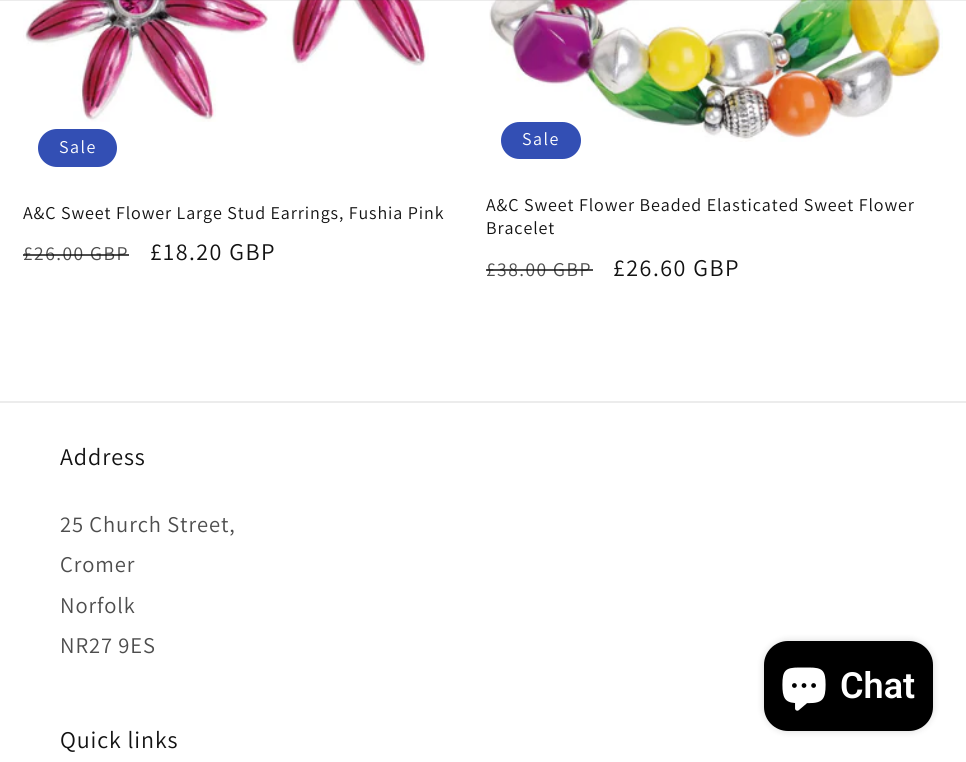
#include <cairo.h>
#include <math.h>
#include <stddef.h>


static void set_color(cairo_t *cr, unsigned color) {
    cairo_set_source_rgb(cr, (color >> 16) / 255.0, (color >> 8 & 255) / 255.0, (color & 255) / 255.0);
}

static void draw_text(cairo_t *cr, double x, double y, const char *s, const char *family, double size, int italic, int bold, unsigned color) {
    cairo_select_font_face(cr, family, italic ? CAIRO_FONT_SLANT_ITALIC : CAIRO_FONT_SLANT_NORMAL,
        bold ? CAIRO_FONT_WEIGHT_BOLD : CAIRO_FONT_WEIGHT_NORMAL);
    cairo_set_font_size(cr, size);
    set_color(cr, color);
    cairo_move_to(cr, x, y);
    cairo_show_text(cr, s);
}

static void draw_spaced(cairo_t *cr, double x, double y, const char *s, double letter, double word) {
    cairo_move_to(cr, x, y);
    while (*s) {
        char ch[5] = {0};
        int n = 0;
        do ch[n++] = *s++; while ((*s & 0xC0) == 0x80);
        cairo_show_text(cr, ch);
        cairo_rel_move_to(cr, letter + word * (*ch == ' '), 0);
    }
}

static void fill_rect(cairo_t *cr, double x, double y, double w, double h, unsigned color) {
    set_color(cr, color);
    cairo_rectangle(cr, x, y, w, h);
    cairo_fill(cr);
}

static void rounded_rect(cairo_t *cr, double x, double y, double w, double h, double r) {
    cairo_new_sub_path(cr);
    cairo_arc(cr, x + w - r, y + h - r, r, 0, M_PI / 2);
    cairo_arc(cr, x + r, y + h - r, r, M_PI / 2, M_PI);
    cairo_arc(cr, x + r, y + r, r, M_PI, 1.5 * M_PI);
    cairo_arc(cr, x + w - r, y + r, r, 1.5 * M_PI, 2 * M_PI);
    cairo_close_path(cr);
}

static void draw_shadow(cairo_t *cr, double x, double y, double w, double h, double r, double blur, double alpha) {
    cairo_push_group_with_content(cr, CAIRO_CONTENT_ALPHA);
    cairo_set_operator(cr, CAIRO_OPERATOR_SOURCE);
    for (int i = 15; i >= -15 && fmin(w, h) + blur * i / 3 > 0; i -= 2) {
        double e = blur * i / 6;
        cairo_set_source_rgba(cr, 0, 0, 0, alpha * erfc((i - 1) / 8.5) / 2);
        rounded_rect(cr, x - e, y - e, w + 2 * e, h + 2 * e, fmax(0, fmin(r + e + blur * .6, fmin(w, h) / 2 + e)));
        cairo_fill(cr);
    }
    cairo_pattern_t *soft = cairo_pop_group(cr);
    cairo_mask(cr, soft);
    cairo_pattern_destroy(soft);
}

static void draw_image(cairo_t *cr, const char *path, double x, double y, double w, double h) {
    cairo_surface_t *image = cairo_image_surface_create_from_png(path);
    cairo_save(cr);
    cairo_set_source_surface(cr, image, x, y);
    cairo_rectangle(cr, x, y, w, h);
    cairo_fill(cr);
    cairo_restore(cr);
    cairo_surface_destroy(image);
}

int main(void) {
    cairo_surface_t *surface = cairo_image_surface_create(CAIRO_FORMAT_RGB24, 966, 762);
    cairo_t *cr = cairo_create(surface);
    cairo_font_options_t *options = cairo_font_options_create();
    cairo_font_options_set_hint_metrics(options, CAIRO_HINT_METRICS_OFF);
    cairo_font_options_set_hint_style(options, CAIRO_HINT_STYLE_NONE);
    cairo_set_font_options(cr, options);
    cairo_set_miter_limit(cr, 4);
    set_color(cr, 0xFFFFFF);
    cairo_paint(cr);
    draw_image(cr, "assets/img1.png", 23, 0, 406, 122);
    draw_image(cr, "assets/img2.png", 489, 0, 454, 142);
    cairo_set_source_rgba(cr, 0.071, 0.071, 0.071, 0.08);
    cairo_rectangle(cr, 0, 0, 966, 1);
    cairo_fill(cr);
    set_color(cr, 0x334FB4);
    rounded_rect(cr, 39, 130, 77, 36, 18);
    cairo_fill_preserve(cr);
    cairo_stroke(cr);
    cairo_select_font_face(cr, "Assistant", CAIRO_FONT_SLANT_NORMAL, CAIRO_FONT_WEIGHT_NORMAL);
    cairo_set_font_size(cr, 18);
    set_color(cr, 0xFFFFFF);
    draw_spaced(cr, 59, 153, "Sale", 1.5, 0);
    set_color(cr, 0x121212);
    draw_spaced(cr, 23, 219, "A&C Sweet Flower Large Stud Earrings, Fushia Pink", 0.9, 0);
    cairo_set_font_size(cr, 19.5);
    set_color(cr, 0x4D4D4D);
    draw_spaced(cr, 23, 260, "£26.00 GBP", 1.5, 0);
    cairo_set_source_rgba(cr, 0.071, 0.071, 0.071, 0.75);
    cairo_rectangle(cr, 23, 254, 106, 2);
    cairo_fill(cr);
    cairo_set_font_size(cr, 24);
    set_color(cr, 0x121212);
    draw_spaced(cr, 150, 260, "£18.20 GBP", 1.5, 0);
    set_color(cr, 0x334FB4);
    rounded_rect(cr, 502, 123, 78, 35, 17.5);
    cairo_fill_preserve(cr);
    cairo_stroke(cr);
    cairo_set_font_size(cr, 18);
    set_color(cr, 0xFFFFFF);
    draw_spaced(cr, 522, 145, "Sale", 1.5, 0);
    set_color(cr, 0x121212);
    draw_spaced(cr, 486, 211, "A&C Sweet Flower Beaded Elasticated Sweet Flower", 0.9, 0);
    draw_spaced(cr, 486, 234, "Bracelet", 0.9, 0);
    cairo_set_font_size(cr, 19.5);
    set_color(cr, 0x4D4D4D);
    draw_spaced(cr, 486, 276, "£38.00 GBP", 1.5, 0);
    cairo_set_source_rgba(cr, 0.071, 0.071, 0.071, 0.75);
    cairo_rectangle(cr, 486, 269, 107, 2);
    cairo_fill(cr);
    cairo_set_font_size(cr, 24);
    set_color(cr, 0x121212);
    draw_spaced(cr, 613, 276, "£26.60 GBP", 1.5, 0);
    fill_rect(cr, 0, 401, 966, 2, 0xECECEC);
    set_color(cr, 0x121212);
    draw_spaced(cr, 60, 465, "Address", 0.9, 0);
    cairo_set_font_size(cr, 22.5);
    set_color(cr, 0x4D4D4D);
    draw_spaced(cr, 60, 532, "25 Church Street,", 0.9, 0);
    draw_spaced(cr, 60, 572, "Cromer", 0.9, 0);
    draw_spaced(cr, 60, 613, "Norfolk", 0.9, 0);
    draw_spaced(cr, 60, 653, "NR27 9ES", 0.9, 0);
    cairo_set_font_size(cr, 24);
    set_color(cr, 0x121212);
    draw_spaced(cr, 60, 748, "Quick links", 0.9, 0);
    set_color(cr, 0x000000);
    draw_shadow(cr, 764, 641, 169, 90, 24, 4, 0.15);
    set_color(cr, 0x000000);
    rounded_rect(cr, 764, 641, 169, 90, 24);
    cairo_fill(cr);
    draw_image(cr, "assets/img3.png", 782, 667, 44, 44);
    draw_text(cr, 840, 698, "Chat", "Roboto SemiBold", 36, 0, 0, 0xFFFFFF);
    cairo_surface_write_to_png(surface, "output.png");
    cairo_font_options_destroy(options);
    cairo_destroy(cr);
    cairo_surface_destroy(surface);
    return 0;
}
